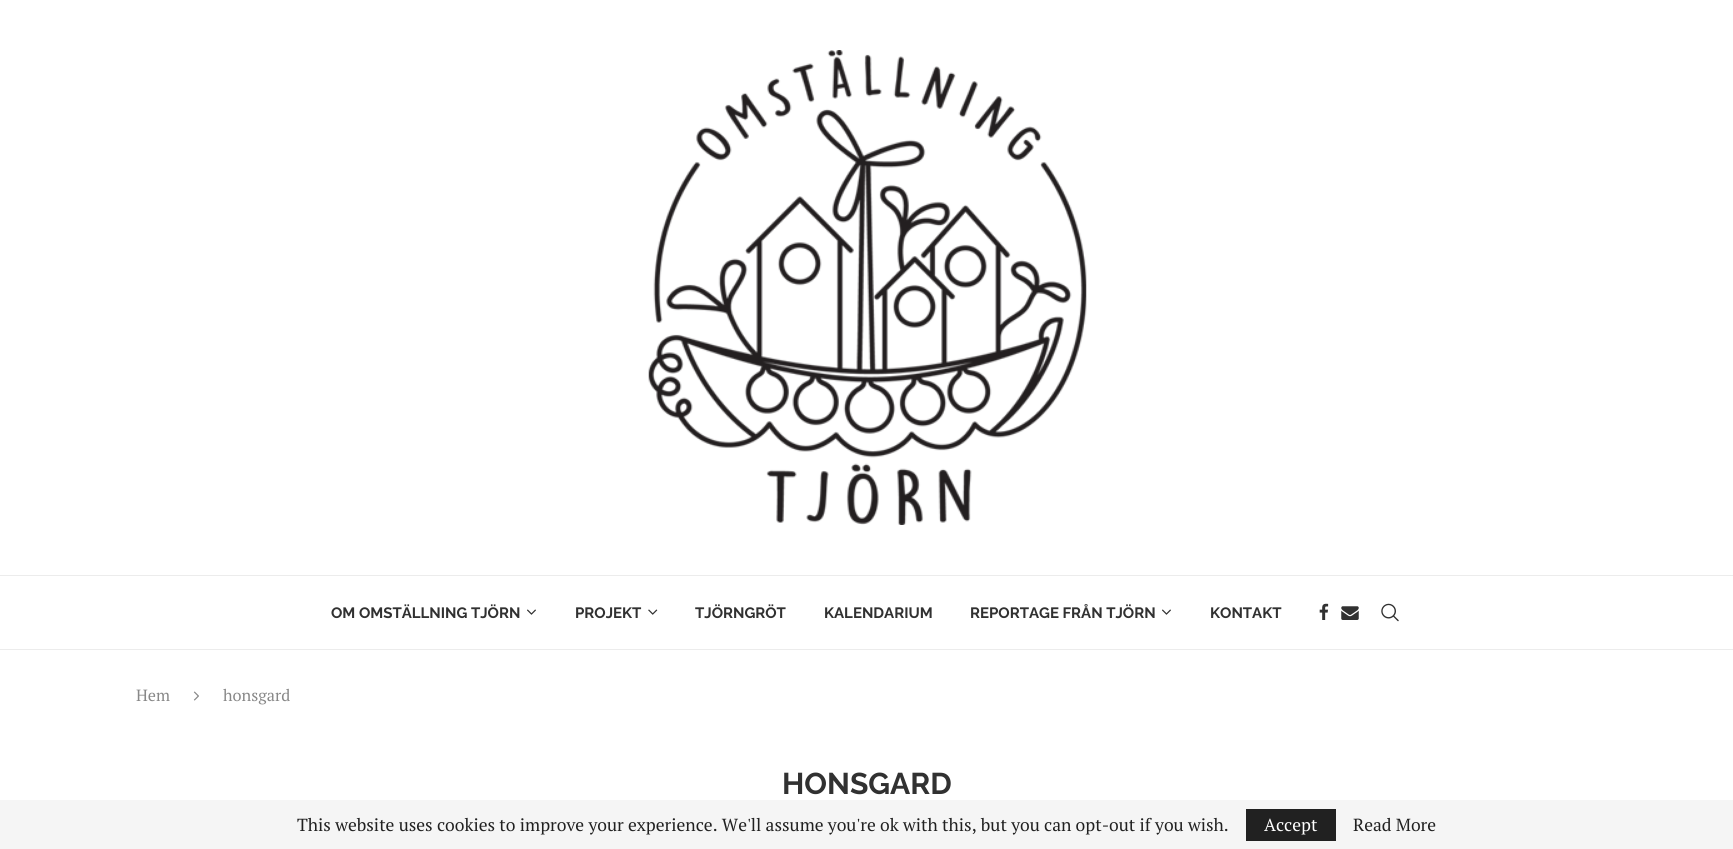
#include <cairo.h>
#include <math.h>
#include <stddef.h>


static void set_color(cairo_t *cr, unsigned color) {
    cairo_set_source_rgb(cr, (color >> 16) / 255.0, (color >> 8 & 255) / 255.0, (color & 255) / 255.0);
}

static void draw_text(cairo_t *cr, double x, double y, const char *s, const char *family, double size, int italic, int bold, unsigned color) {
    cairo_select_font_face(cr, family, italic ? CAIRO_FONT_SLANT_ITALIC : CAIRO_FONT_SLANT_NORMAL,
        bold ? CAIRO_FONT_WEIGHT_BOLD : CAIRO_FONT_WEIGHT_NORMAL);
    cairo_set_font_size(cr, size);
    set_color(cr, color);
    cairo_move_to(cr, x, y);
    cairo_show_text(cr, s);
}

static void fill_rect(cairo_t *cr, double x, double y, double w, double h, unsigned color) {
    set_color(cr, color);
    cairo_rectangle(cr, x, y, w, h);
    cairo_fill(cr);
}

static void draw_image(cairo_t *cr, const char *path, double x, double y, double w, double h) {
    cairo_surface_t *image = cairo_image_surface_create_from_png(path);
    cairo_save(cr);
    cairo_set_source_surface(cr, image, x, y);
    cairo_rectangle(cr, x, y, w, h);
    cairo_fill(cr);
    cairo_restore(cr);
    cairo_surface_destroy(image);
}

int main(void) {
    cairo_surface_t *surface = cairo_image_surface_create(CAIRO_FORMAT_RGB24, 1733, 849);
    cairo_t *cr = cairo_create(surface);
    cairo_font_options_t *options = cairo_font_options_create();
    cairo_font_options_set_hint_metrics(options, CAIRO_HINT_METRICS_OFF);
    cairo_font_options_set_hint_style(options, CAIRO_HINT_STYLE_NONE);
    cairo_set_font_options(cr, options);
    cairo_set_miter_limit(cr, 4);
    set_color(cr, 0xFFFFFF);
    cairo_paint(cr);
    draw_image(cr, "assets/img1.png", 648, 50, 439, 475);
    fill_rect(cr, 0, 575, 1733, 1, 0xECECEC);
    fill_rect(cr, 0, 649, 1733, 1, 0xECECEC);
    draw_text(cr, 331, 618, "OM OMSTÄLLNING TJÖRN", "Raleway", 15, 0, 1, 0x313131);
    draw_image(cr, "assets/img2.png", 527, 609, 9, 6);
    draw_text(cr, 575, 618, "PROJEKT", "Raleway", 15, 0, 1, 0x313131);
    draw_image(cr, "assets/img3.png", 648, 609, 10, 6);
    draw_text(cr, 695, 618, "TJÖRNGRÖT", "Raleway", 15, 0, 1, 0x313131);
    draw_text(cr, 824, 618, "KALENDARIUM", "Raleway", 15, 0, 1, 0x313131);
    draw_text(cr, 970, 618, "REPORTAGE FRÅN TJÖRN", "Raleway", 15, 0, 1, 0x313131);
    draw_image(cr, "assets/img2.png", 1162, 609, 9, 6);
    draw_text(cr, 1210, 618, "KONTAKT", "Raleway", 15, 0, 1, 0x313131);
    draw_image(cr, "assets/img4.png", 1319, 603, 10, 17);
    draw_image(cr, "assets/img5.png", 1341, 606, 18, 14);
    draw_image(cr, "assets/img6.png", 1381, 603, 18, 19);
    draw_text(cr, 136, 701, "Hem", "PT Serif", 16.25, 0, 0, 0x888888);
    draw_image(cr, "assets/img7.png", 193, 691, 6, 10);
    draw_text(cr, 223, 701, "honsgard", "PT Serif", 16.25, 0, 0, 0x888888);
    draw_text(cr, 782, 794, "HONSGARD", "Raleway", 30, 0, 1, 0x313131);
    fill_rect(cr, 0, 800, 1733, 49, 0xF5F5F5);
    draw_text(cr, 297, 831, "This website uses cookies to improve your experience. We'll assume you're ok with this, but you can opt-out if you wish.", "PT Serif", 17.5, 0, 0, 0x212121);
    fill_rect(cr, 1246, 809, 90, 32, 0x212121);
    draw_text(cr, 1264, 831, "Accept", "PT Serif", 17.5, 0, 0, 0xFFFFFF);
    draw_text(cr, 1353, 831, "Read More", "PT Serif", 17.5, 0, 0, 0x212121);
    cairo_surface_write_to_png(surface, "output.png");
    cairo_font_options_destroy(options);
    cairo_destroy(cr);
    cairo_surface_destroy(surface);
    return 0;
}
